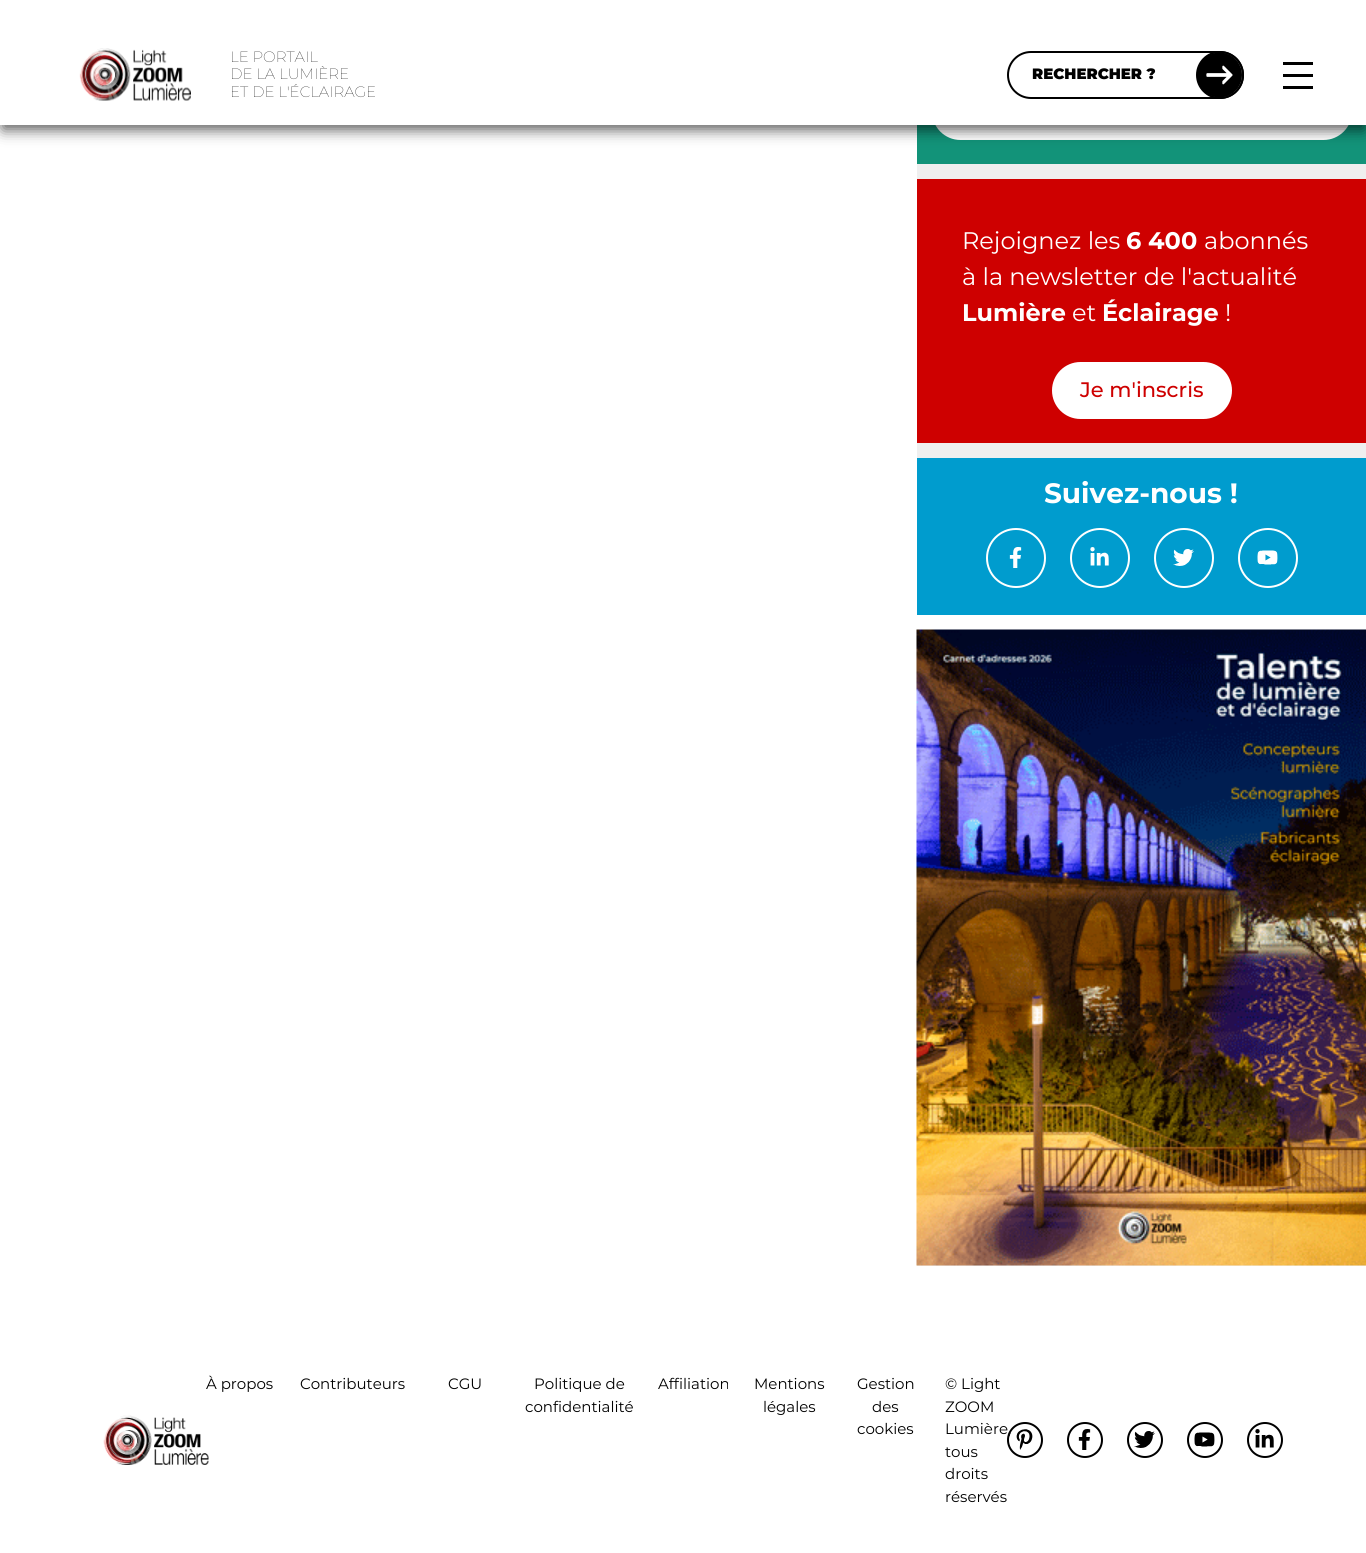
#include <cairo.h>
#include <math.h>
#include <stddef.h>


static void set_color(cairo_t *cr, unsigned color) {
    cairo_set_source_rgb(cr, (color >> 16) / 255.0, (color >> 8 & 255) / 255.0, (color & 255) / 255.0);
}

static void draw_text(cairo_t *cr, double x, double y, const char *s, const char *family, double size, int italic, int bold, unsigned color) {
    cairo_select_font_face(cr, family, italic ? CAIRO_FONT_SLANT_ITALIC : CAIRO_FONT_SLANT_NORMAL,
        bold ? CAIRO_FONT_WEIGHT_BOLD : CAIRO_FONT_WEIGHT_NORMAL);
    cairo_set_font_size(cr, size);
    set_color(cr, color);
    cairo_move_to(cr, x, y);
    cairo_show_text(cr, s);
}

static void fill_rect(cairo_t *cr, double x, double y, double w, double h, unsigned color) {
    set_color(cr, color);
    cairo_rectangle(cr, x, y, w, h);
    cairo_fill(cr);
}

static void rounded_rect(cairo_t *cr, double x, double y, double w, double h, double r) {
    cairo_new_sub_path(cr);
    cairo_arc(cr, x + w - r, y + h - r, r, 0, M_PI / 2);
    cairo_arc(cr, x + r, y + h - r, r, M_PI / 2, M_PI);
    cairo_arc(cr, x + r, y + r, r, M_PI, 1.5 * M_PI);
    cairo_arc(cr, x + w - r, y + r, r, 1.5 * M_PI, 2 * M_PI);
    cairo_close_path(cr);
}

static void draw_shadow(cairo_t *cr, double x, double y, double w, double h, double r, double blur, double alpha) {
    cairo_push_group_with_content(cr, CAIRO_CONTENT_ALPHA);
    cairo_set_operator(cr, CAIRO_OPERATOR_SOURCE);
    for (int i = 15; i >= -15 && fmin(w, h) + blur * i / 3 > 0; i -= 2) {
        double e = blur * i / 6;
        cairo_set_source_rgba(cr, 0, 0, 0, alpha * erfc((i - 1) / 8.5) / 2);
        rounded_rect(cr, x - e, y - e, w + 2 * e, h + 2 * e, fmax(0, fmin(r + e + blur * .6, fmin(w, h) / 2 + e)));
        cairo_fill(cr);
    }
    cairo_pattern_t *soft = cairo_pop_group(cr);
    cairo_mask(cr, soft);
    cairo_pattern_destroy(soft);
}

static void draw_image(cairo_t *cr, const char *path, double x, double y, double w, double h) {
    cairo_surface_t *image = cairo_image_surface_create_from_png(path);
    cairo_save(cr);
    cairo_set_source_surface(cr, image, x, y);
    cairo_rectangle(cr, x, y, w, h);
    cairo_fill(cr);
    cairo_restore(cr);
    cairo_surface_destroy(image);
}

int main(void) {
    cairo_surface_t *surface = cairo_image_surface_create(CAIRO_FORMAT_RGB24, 1366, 1553);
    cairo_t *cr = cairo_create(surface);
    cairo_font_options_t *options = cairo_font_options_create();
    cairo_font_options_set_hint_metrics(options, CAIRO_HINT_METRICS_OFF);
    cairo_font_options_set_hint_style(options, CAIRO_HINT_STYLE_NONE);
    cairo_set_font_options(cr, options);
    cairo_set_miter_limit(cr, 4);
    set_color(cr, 0xFFFFFF);
    cairo_paint(cr);
    fill_rect(cr, 917, 125, 449, 39, 0x129379);
    set_color(cr, 0xFFFFFF);
    rounded_rect(cr, 933, 84, 418, 55, 27.5);
    cairo_fill_preserve(cr);
    cairo_stroke(cr);
    set_color(cr, 0x000000);
    draw_shadow(cr, 3, 11, 1361, 118, 0, 7.5, 0.7);
    fill_rect(cr, 0, 0, 1366, 125, 0xFFFFFF);
    draw_image(cr, "assets/img1.png", 79, 48, 112, 53);
    draw_text(cr, 230, 62, "LE PORTAIL", "Montserrat Thin", 15, 0, 0, 0x000000);
    draw_text(cr, 230, 79, "DE LA LUMIÈRE", "Montserrat Thin", 15, 0, 0, 0x000000);
    draw_text(cr, 230, 97, "ET DE L'ÉCLAIRAGE", "Montserrat Thin", 15, 0, 0, 0x000000);
    rounded_rect(cr, 1008, 52, 235, 46, 23);
    cairo_stroke(cr);
    draw_text(cr, 1032, 79, "RECHERCHER ?", "Montserrat Black", 15, 0, 0, 0x000000);
    cairo_new_path(cr);
    cairo_arc(cr, 1220, 75, 23, 0, 2 * M_PI);
    cairo_stroke(cr);
    draw_image(cr, "assets/img2.png", 1198, 53, 44, 44);
    fill_rect(cr, 1283, 62, 30, 3, 0x000000);
    fill_rect(cr, 1283, 74, 30, 3, 0x000000);
    fill_rect(cr, 1283, 86, 30, 3, 0x000000);
    fill_rect(cr, 917, 164, 449, 294, 0xEFEFEF);
    fill_rect(cr, 917, 179, 449, 264, 0xCE0000);
    draw_text(cr, 962, 249, "Rejoignez les", "Montserrat", 24, 0, 0, 0xFFFFFF);
    draw_text(cr, 1126, 249, "6 400", "Montserrat", 24, 0, 1, 0xFFFFFF);
    draw_text(cr, 1204, 249, "abonnés", "Montserrat", 24, 0, 0, 0xFFFFFF);
    draw_text(cr, 962, 285, "à la newsletter de l'actualité", "Montserrat", 24, 0, 0, 0xFFFFFF);
    draw_text(cr, 962, 321, "Lumière", "Montserrat", 24, 0, 1, 0xFFFFFF);
    draw_text(cr, 1072, 321, "et", "Montserrat", 24, 0, 0, 0xFFFFFF);
    draw_text(cr, 1102, 321, "Éclairage", "Montserrat", 24, 0, 1, 0xFFFFFF);
    draw_text(cr, 1225, 321, "!", "Montserrat", 24, 0, 0, 0xFFFFFF);
    rounded_rect(cr, 1053, 363, 178, 55, 27.5);
    cairo_fill_preserve(cr);
    cairo_stroke(cr);
    draw_text(cr, 1080, 397, "Je m'inscris", "Montserrat Medium", 21, 0, 0, 0xCE0000);
    fill_rect(cr, 917, 458, 449, 157, 0x009CCE);
    draw_text(cr, 1044, 503, "Suivez-nous !", "Montserrat", 28, 0, 1, 0xFFFFFF);
    cairo_new_path(cr);
    cairo_arc(cr, 1016, 558, 29, 0, 2 * M_PI);
    cairo_stroke(cr);
    draw_image(cr, "assets/img3.png", 1009, 547, 13, 21);
    cairo_arc(cr, 1100, 558, 29, 0, 2 * M_PI);
    cairo_stroke(cr);
    draw_image(cr, "assets/img4.png", 1090, 547, 19, 19);
    cairo_arc(cr, 1184, 558, 29, 0, 2 * M_PI);
    cairo_stroke(cr);
    draw_image(cr, "assets/img5.png", 1173, 549, 21, 17);
    cairo_arc(cr, 1268, 558, 29, 0, 2 * M_PI);
    cairo_stroke(cr);
    draw_image(cr, "assets/img6.png", 1257, 550, 21, 15);
    fill_rect(cr, 917, 1265, 449, 1, 0xEFEFEF);
    draw_image(cr, "assets/img7.png", 916, 629, 450, 637);
    draw_image(cr, "assets/img8.png", 103, 1415, 106, 50);
    draw_text(cr, 206, 1389, "À propos", "Montserrat", 15, 0, 0, 0x000000);
    draw_text(cr, 300, 1389, "Contributeurs", "Montserrat", 15, 0, 0, 0x000000);
    draw_text(cr, 448, 1389, "CGU", "Montserrat", 15, 0, 0, 0x000000);
    draw_text(cr, 534, 1389, "Politique de", "Montserrat", 15, 0, 0, 0x000000);
    draw_text(cr, 525, 1412, "confidentialité", "Montserrat", 15, 0, 0, 0x000000);
    draw_text(cr, 658, 1389, "Affiliation", "Montserrat", 15, 0, 0, 0x000000);
    draw_text(cr, 754, 1389, "Mentions", "Montserrat", 15, 0, 0, 0x000000);
    draw_text(cr, 763, 1412, "légales", "Montserrat", 15, 0, 0, 0x000000);
    draw_text(cr, 857, 1389, "Gestion", "Montserrat", 15, 0, 0, 0x000000);
    draw_text(cr, 872, 1412, "des", "Montserrat", 15, 0, 0, 0x000000);
    draw_text(cr, 857, 1434, "cookies", "Montserrat", 15, 0, 0, 0x000000);
    draw_text(cr, 945, 1389, "© Light", "Montserrat", 15, 0, 0, 0x000000);
    draw_text(cr, 945, 1412, "ZOOM", "Montserrat", 15, 0, 0, 0x000000);
    draw_text(cr, 945, 1434, "Lumière,", "Montserrat", 15, 0, 0, 0x000000);
    draw_text(cr, 945, 1457, "tous", "Montserrat", 15, 0, 0, 0x000000);
    draw_text(cr, 945, 1479, "droits", "Montserrat", 15, 0, 0, 0x000000);
    draw_text(cr, 945, 1502, "réservés", "Montserrat", 15, 0, 0, 0x000000);
    cairo_new_path(cr);
    cairo_arc(cr, 1025, 1440, 17, 0, 2 * M_PI);
    cairo_stroke(cr);
    draw_image(cr, "assets/img9.png", 1016, 1429, 17, 21);
    cairo_arc(cr, 1085, 1440, 17, 0, 2 * M_PI);
    cairo_stroke(cr);
    draw_image(cr, "assets/img10.png", 1078, 1429, 13, 21);
    cairo_arc(cr, 1145, 1440, 17, 0, 2 * M_PI);
    cairo_stroke(cr);
    draw_image(cr, "assets/img11.png", 1134, 1431, 21, 17);
    cairo_arc(cr, 1205, 1440, 17, 0, 2 * M_PI);
    cairo_stroke(cr);
    draw_image(cr, "assets/img12.png", 1194, 1432, 21, 15);
    cairo_arc(cr, 1265, 1440, 17, 0, 2 * M_PI);
    cairo_stroke(cr);
    draw_image(cr, "assets/img13.png", 1255, 1429, 19, 19);
    cairo_surface_write_to_png(surface, "output.png");
    cairo_font_options_destroy(options);
    cairo_destroy(cr);
    cairo_surface_destroy(surface);
    return 0;
}
